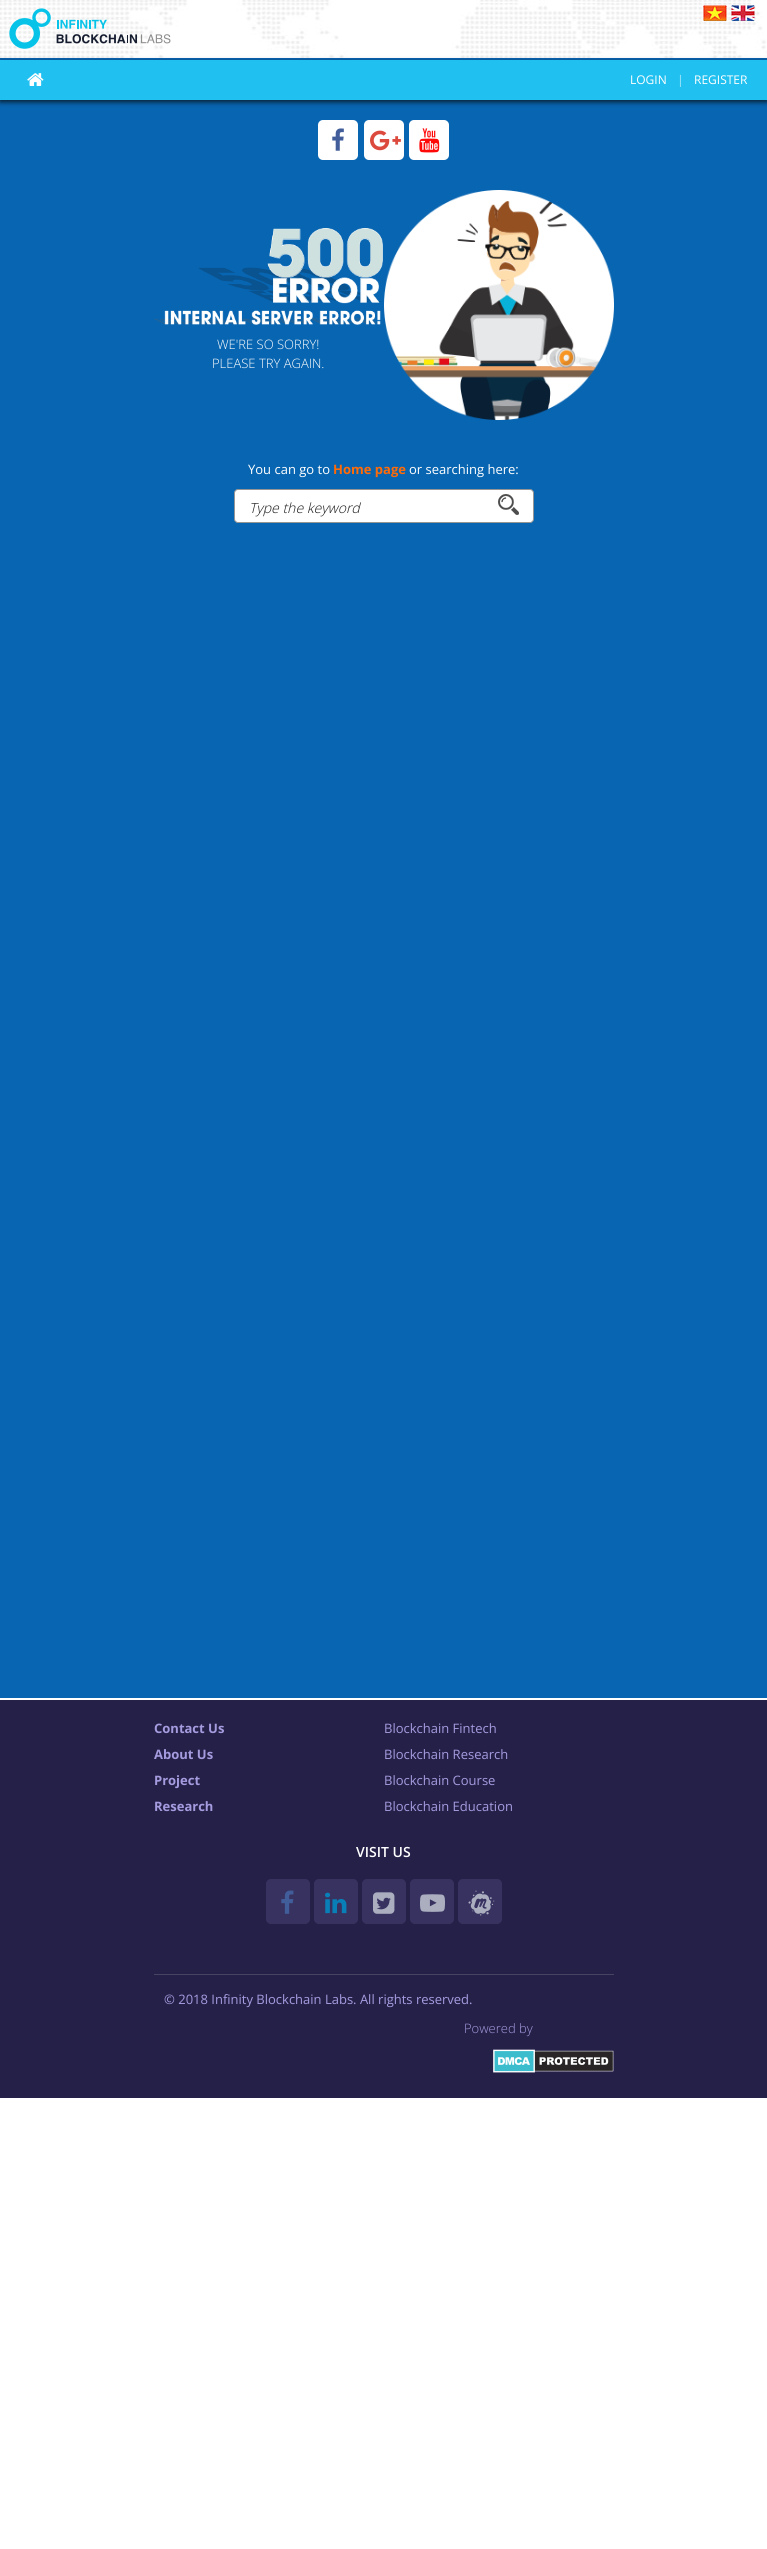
#include <cairo.h>
#include <math.h>
#include <stddef.h>


static void set_color(cairo_t *cr, unsigned color) {
    cairo_set_source_rgb(cr, (color >> 16) / 255.0, (color >> 8 & 255) / 255.0, (color & 255) / 255.0);
}

static void draw_text(cairo_t *cr, double x, double y, const char *s, const char *family, double size, int italic, int bold, unsigned color) {
    cairo_select_font_face(cr, family, italic ? CAIRO_FONT_SLANT_ITALIC : CAIRO_FONT_SLANT_NORMAL,
        bold ? CAIRO_FONT_WEIGHT_BOLD : CAIRO_FONT_WEIGHT_NORMAL);
    cairo_set_font_size(cr, size);
    set_color(cr, color);
    cairo_move_to(cr, x, y);
    cairo_show_text(cr, s);
}

static void fill_rect(cairo_t *cr, double x, double y, double w, double h, unsigned color) {
    set_color(cr, color);
    cairo_rectangle(cr, x, y, w, h);
    cairo_fill(cr);
}

static void rounded_rect(cairo_t *cr, double x, double y, double w, double h, double r) {
    cairo_new_sub_path(cr);
    cairo_arc(cr, x + w - r, y + h - r, r, 0, M_PI / 2);
    cairo_arc(cr, x + r, y + h - r, r, M_PI / 2, M_PI);
    cairo_arc(cr, x + r, y + r, r, M_PI, 1.5 * M_PI);
    cairo_arc(cr, x + w - r, y + r, r, 1.5 * M_PI, 2 * M_PI);
    cairo_close_path(cr);
}

static void draw_shadow(cairo_t *cr, double x, double y, double w, double h, double r, double blur, double alpha) {
    cairo_push_group_with_content(cr, CAIRO_CONTENT_ALPHA);
    cairo_set_operator(cr, CAIRO_OPERATOR_SOURCE);
    for (int i = 15; i >= -15 && fmin(w, h) + blur * i / 3 > 0; i -= 2) {
        double e = blur * i / 6;
        cairo_set_source_rgba(cr, 0, 0, 0, alpha * erfc((i - 1) / 8.5) / 2);
        rounded_rect(cr, x - e, y - e, w + 2 * e, h + 2 * e, fmax(0, fmin(r + e + blur * .6, fmin(w, h) / 2 + e)));
        cairo_fill(cr);
    }
    cairo_pattern_t *soft = cairo_pop_group(cr);
    cairo_mask(cr, soft);
    cairo_pattern_destroy(soft);
}

static void draw_image(cairo_t *cr, const char *path, double x, double y, double w, double h) {
    cairo_surface_t *image = cairo_image_surface_create_from_png(path);
    cairo_save(cr);
    cairo_set_source_surface(cr, image, x, y);
    cairo_rectangle(cr, x, y, w, h);
    cairo_fill(cr);
    cairo_restore(cr);
    cairo_surface_destroy(image);
}

int main(void) {
    cairo_surface_t *surface = cairo_image_surface_create(CAIRO_FORMAT_RGB24, 767, 2549);
    cairo_t *cr = cairo_create(surface);
    cairo_font_options_t *options = cairo_font_options_create();
    cairo_font_options_set_hint_metrics(options, CAIRO_HINT_METRICS_OFF);
    cairo_font_options_set_hint_style(options, CAIRO_HINT_STYLE_NONE);
    cairo_set_font_options(cr, options);
    cairo_set_miter_limit(cr, 4);
    set_color(cr, 0xFFFFFF);
    cairo_paint(cr);
    fill_rect(cr, 0, 58, 767, 1640, 0x0865B1);
    draw_image(cr, "assets/img1.png", 0, 0, 767, 3);
    draw_image(cr, "assets/img2.png", 0, 3, 767, 55);
    draw_image(cr, "assets/img3.png", 9, 8, 162, 41);
    draw_image(cr, "assets/img4.png", 703, 5, 24, 17);
    draw_image(cr, "assets/img5.png", 731, 5, 24, 17);
    set_color(cr, 0x080808);
    draw_shadow(cr, 0, 62, 767, 40, 0, 2.5, 0.8);
    fill_rect(cr, 0, 60, 767, 40, 0x20C0F0);
    draw_image(cr, "assets/img6.png", 27, 73, 17, 13);
    draw_text(cr, 630, 84, "LOGIN", "Open Sans", 12, 0, 0, 0xFFFFFF);
    draw_text(cr, 677, 84, "|", "Open Sans Light", 12, 0, 0, 0xFFFFFF);
    draw_text(cr, 694, 84, "REGISTER", "Open Sans", 12, 0, 0, 0xFFFFFF);
    rounded_rect(cr, 318, 120, 40, 40, 5);
    cairo_fill(cr);
    draw_image(cr, "assets/img7.png", 332, 128, 12, 23);
    rounded_rect(cr, 364, 120, 40, 40, 5);
    cairo_fill(cr);
    draw_image(cr, "assets/img8.png", 370, 130, 31, 21);
    rounded_rect(cr, 409, 120, 40, 40, 5);
    cairo_fill(cr);
    draw_image(cr, "assets/img9.png", 419, 128, 21, 25);
    draw_image(cr, "assets/img10.png", 154, 228, 229, 97);
    draw_text(cr, 217, 349, "WE'RE SO SORRY!", "Open Sans Light", 13, 0, 0, 0xFFFFFF);
    draw_text(cr, 212, 368, "PLEASE TRY AGAIN.", "Open Sans Light", 13, 0, 0, 0xFFFFFF);
    draw_image(cr, "assets/img11.png", 384, 190, 230, 230);
    draw_text(cr, 248, 474, "You can go to", "Open Sans", 13, 0, 0, 0xFFFFFF);
    draw_text(cr, 333, 474, "Home page", "Open Sans", 13, 0, 1, 0xFF6B08);
    draw_text(cr, 409, 474, "or searching here:", "Open Sans", 13, 0, 0, 0xFFFFFF);
    rounded_rect(cr, 234.5, 489.5, 299, 33, 3.5);
    cairo_fill_preserve(cr);
    set_color(cr, 0x959595);
    cairo_set_line_width(cr, 1);
    cairo_stroke(cr);
    draw_text(cr, 249, 513, "Type the keyword", "Open Sans Light", 14, 1, 0, 0x181818);
    draw_image(cr, "assets/img12.png", 498, 494, 21, 21);
    fill_rect(cr, 0, 1700, 767, 398, 0x252048);
    draw_text(cr, 154, 1733, "Contact Us", "Open Sans", 13, 0, 1, 0xA59CDF);
    draw_text(cr, 154, 1759, "About Us", "Open Sans", 13, 0, 1, 0xA59CDF);
    draw_text(cr, 154, 1785, "Project", "Open Sans", 13, 0, 1, 0xA59CDF);
    draw_text(cr, 154, 1811, "Research", "Open Sans", 13, 0, 1, 0xA59CDF);
    draw_text(cr, 384, 1733, "Blockchain Fintech", "Open Sans", 13, 0, 0, 0xA59CDF);
    draw_text(cr, 384, 1759, "Blockchain Research", "Open Sans", 13, 0, 0, 0xA59CDF);
    draw_text(cr, 384, 1785, "Blockchain Course", "Open Sans", 13, 0, 0, 0xA59CDF);
    draw_text(cr, 384, 1811, "Blockchain Education", "Open Sans", 13, 0, 0, 0xA59CDF);
    draw_text(cr, 356, 1857, "VISIT US", "Open Sans SemiBold", 14, 0, 0, 0xFFFFFF);
    set_color(cr, 0x383261);
    rounded_rect(cr, 266, 1879, 44, 45, 5);
    cairo_fill(cr);
    draw_image(cr, "assets/img13.png", 281, 1890, 13, 24);
    rounded_rect(cr, 314, 1879, 44, 45, 5);
    cairo_fill(cr);
    draw_image(cr, "assets/img14.png", 325, 1892, 22, 22);
    rounded_rect(cr, 362, 1879, 44, 45, 5);
    cairo_fill(cr);
    draw_image(cr, "assets/img15.png", 373, 1892, 22, 22);
    rounded_rect(cr, 410, 1879, 44, 45, 5);
    cairo_fill(cr);
    draw_image(cr, "assets/img16.png", 420, 1894, 25, 18);
    rounded_rect(cr, 458, 1879, 44, 45, 5);
    cairo_fill(cr);
    draw_image(cr, "assets/img17.png", 468, 1890, 27, 26);
    fill_rect(cr, 154, 1974, 460, 1, 0x474363);
    draw_text(cr, 164, 2004, "© 2018 Infinity Blockchain Labs. All rights reserved.", "Open Sans", 13, 0, 0, 0xA59CDF);
    draw_text(cr, 464, 2033, "Powered by", "Open Sans Light", 13, 0, 0, 0xA59CDF);
    draw_image(cr, "assets/img18.png", 493, 2049, 121, 24);
    cairo_surface_write_to_png(surface, "output.png");
    cairo_font_options_destroy(options);
    cairo_destroy(cr);
    cairo_surface_destroy(surface);
    return 0;
}
